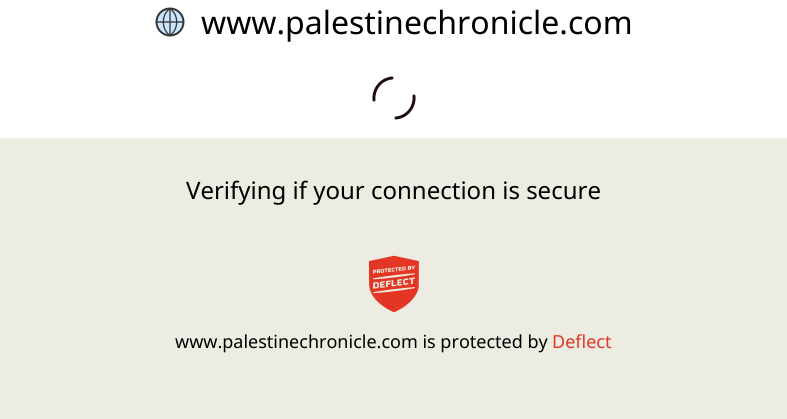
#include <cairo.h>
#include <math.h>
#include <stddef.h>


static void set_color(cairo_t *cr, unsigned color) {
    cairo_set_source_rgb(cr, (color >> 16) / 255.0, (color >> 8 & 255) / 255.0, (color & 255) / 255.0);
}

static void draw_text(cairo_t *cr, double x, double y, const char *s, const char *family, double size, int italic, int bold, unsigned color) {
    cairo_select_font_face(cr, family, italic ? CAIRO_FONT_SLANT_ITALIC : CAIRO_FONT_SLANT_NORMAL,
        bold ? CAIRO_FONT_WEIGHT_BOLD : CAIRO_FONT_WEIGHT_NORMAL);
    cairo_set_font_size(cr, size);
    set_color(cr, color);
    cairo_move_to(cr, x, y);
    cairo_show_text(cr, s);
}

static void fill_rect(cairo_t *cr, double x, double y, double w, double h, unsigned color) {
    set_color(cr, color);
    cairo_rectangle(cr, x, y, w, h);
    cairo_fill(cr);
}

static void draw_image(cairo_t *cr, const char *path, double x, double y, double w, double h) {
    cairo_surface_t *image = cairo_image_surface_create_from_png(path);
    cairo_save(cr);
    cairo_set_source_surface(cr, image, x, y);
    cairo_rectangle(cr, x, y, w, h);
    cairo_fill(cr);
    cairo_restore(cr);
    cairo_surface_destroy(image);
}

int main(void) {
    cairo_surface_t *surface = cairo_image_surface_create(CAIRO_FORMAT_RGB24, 787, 419);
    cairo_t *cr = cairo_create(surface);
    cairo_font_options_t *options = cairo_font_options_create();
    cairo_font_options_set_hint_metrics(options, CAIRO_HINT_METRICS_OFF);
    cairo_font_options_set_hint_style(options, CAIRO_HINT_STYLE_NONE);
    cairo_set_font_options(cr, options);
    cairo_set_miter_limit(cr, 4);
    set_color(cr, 0xFFFFFF);
    cairo_paint(cr);
    draw_image(cr, "assets/img1.png", 155, 7, 30, 30);
    draw_text(cr, 201, 34, "www.palestinechronicle.com", "Noto Sans", 32, 0, 0, 0x000000);
    cairo_new_path(cr);
    cairo_move_to(cr, 414, 96);
    cairo_curve_to(cr, 415, 107, 407, 117, 396, 118);
    cairo_move_to(cr, 374, 100);
    cairo_curve_to(cr, 373, 89, 381, 79, 392, 78);
    set_color(cr, 0x1D0E0B);
    cairo_set_line_width(cr, 3);
    cairo_set_line_cap(cr, CAIRO_LINE_CAP_ROUND);
    cairo_stroke(cr);
    fill_rect(cr, 0, 138, 787, 281, 0xECECE2);
    draw_text(cr, 186, 199, "Verifying if your connection is secure", "Noto Sans", 24, 0, 0, 0x000000);
    draw_image(cr, "assets/img2.png", 369, 255, 50, 58);
    draw_text(cr, 175, 348, "www.palestinechronicle.com is protected by", "Noto Sans", 18, 0, 0, 0x000000);
    draw_text(cr, 552, 348, "Deflect", "Noto Sans", 18, 0, 0, 0xE33624);
    cairo_surface_write_to_png(surface, "output.png");
    cairo_font_options_destroy(options);
    cairo_destroy(cr);
    cairo_surface_destroy(surface);
    return 0;
}
